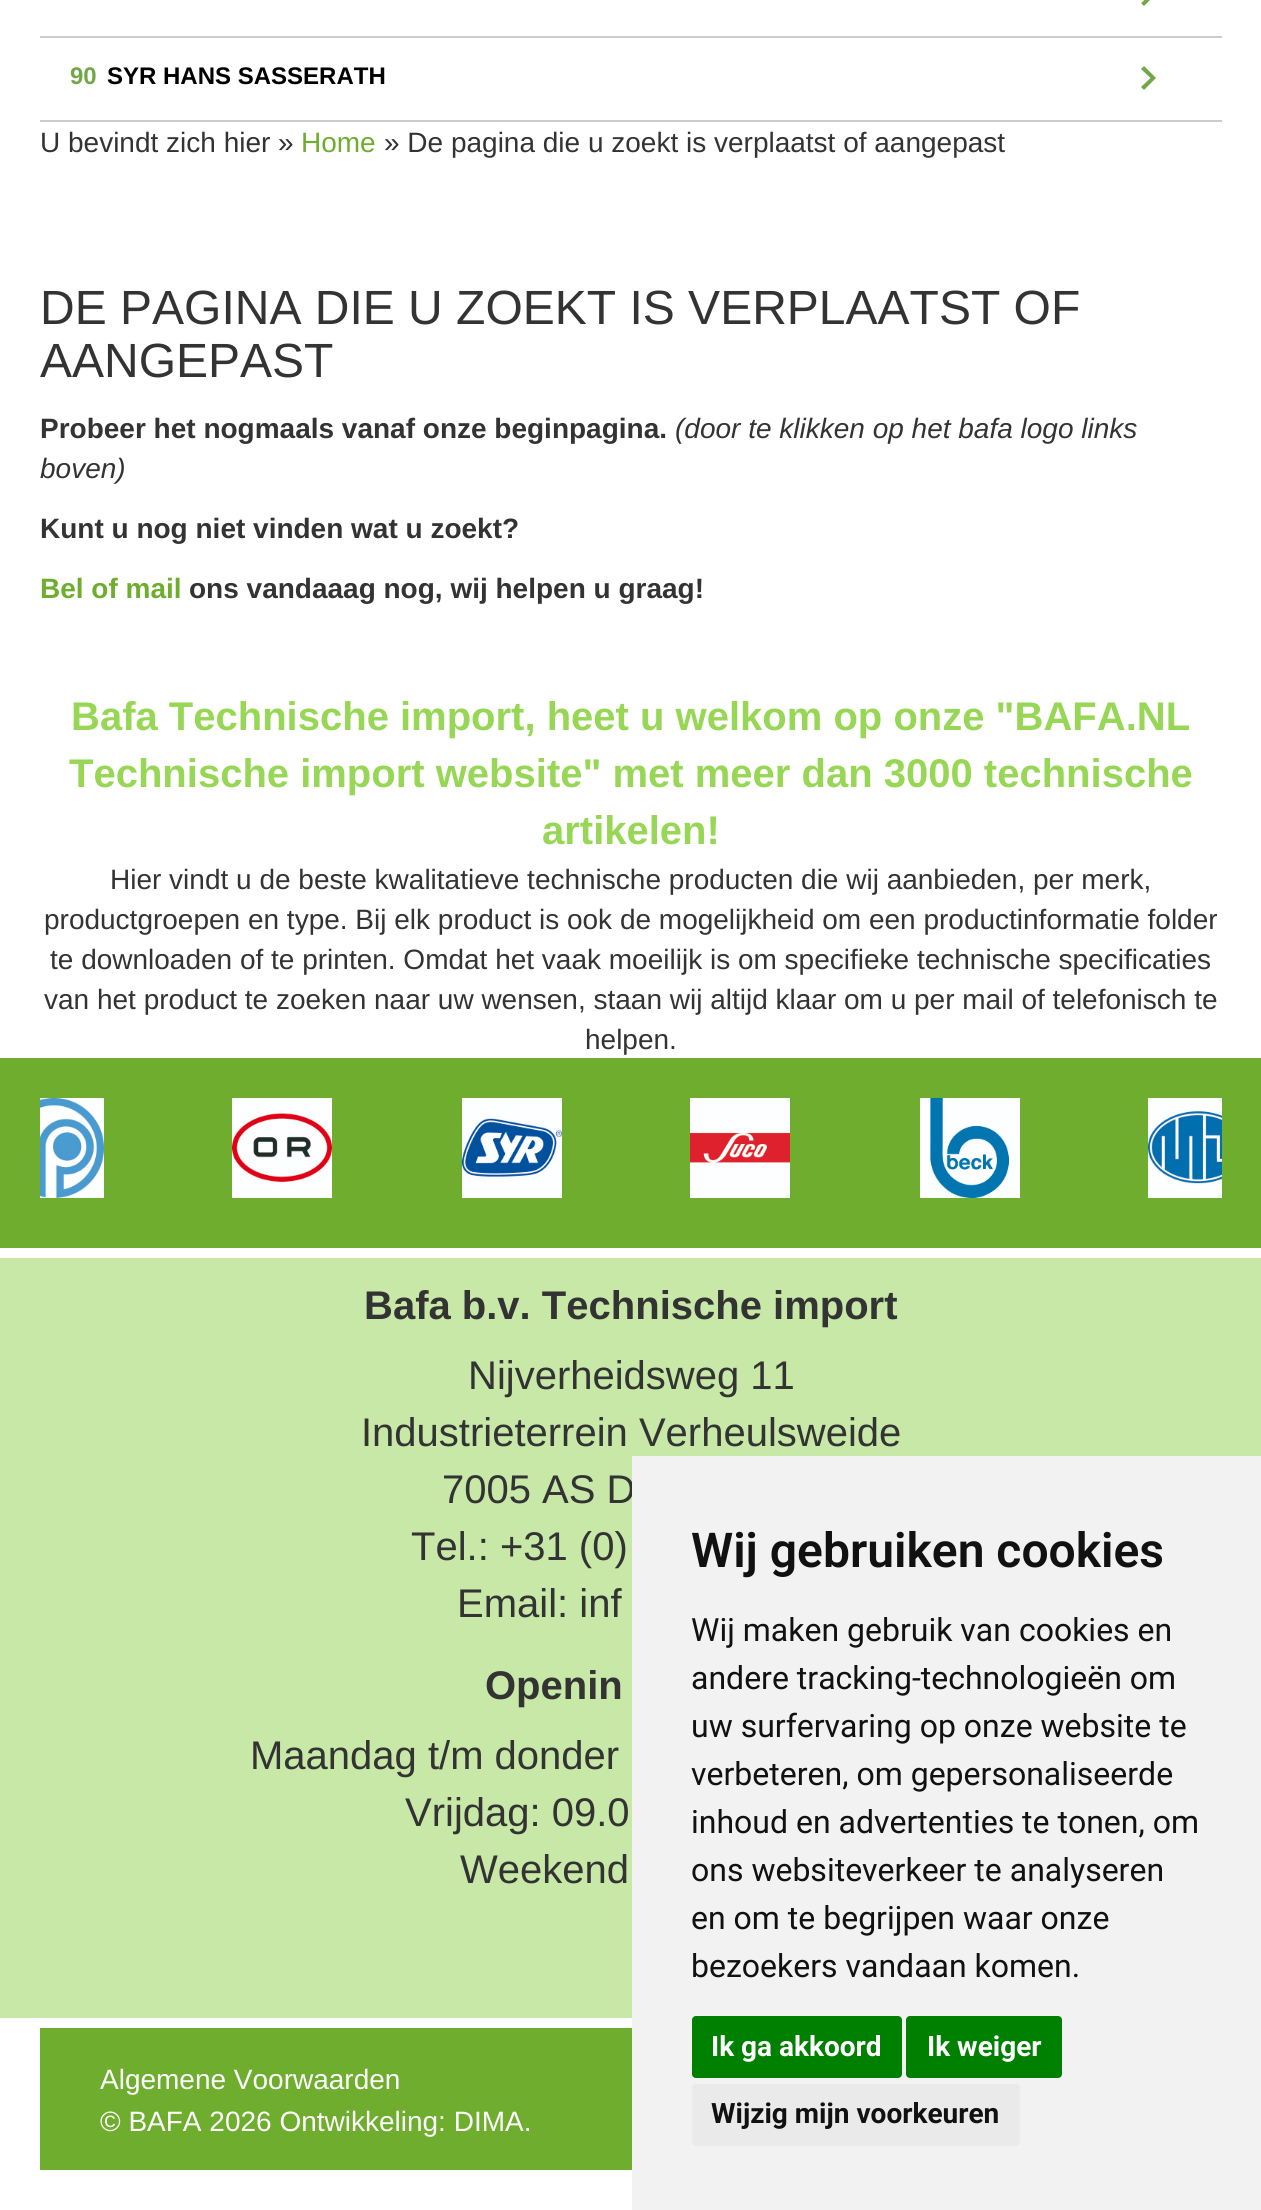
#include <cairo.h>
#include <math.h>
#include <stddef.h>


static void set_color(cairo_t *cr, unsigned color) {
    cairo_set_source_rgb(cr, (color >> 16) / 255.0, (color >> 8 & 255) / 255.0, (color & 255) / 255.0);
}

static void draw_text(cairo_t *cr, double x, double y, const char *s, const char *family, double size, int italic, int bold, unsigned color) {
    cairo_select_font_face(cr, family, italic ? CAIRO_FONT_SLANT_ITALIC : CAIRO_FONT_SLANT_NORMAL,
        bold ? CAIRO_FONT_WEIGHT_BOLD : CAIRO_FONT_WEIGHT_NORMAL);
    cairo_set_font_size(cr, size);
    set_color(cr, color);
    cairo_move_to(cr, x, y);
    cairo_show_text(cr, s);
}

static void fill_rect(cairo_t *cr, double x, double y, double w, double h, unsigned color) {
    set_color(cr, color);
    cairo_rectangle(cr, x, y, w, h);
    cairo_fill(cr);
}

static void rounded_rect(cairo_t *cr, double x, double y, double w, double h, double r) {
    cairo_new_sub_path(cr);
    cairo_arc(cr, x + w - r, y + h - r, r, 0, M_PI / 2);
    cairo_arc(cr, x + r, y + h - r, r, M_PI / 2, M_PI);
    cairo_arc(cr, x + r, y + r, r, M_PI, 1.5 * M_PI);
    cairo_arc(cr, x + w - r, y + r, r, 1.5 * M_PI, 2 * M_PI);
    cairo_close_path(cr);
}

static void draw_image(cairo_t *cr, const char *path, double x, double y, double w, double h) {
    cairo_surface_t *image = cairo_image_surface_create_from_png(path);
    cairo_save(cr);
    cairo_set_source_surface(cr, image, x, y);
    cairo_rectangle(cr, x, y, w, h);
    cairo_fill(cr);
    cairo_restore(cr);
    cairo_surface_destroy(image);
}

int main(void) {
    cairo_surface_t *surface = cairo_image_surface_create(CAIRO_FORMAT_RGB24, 1261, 2210);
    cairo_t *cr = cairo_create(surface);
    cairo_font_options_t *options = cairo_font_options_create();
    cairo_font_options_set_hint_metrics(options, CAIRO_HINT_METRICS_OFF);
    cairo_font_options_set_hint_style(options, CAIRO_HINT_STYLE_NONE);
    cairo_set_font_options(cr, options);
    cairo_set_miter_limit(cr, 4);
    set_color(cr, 0xFFFFFF);
    cairo_paint(cr);
    fill_rect(cr, 40, 36, 1182, 2, 0xCCCCCC);
    draw_image(cr, "assets/img1.png", 1141, 0, 9, 6);
    fill_rect(cr, 40, 120, 1182, 2, 0xCCCCCC);
    draw_text(cr, 70, 84, "90", "Liberation Sans", 24, 0, 1, 0x72A749);
    draw_text(cr, 107, 84, "SYR HANS SASSERATH", "Liberation Sans", 24, 0, 1, 0x000000);
    set_color(cr, 0x72A749);
    cairo_new_path(cr);
    cairo_move_to(cr, 1144, 66);
    cairo_line_to(cr, 1156, 78);
    cairo_line_to(cr, 1144, 90);
    cairo_line_to(cr, 1141, 87);
    cairo_line_to(cr, 1150.5, 78);
    cairo_line_to(cr, 1141, 69);
    cairo_close_path(cr);
    cairo_fill(cr);
    draw_text(cr, 40, 152, "U bevindt zich hier »", "Liberation Sans", 28, 0, 0, 0x333333);
    draw_text(cr, 301, 152, "Home", "Liberation Sans", 28, 0, 0, 0x6EAD2E);
    draw_text(cr, 384, 152, "» De pagina die u zoekt is verplaatst of aangepast", "Liberation Sans", 28, 0, 0, 0x333333);
    draw_text(cr, 40, 324, "DE PAGINA DIE U ZOEKT IS VERPLAATST OF", "Liberation Sans", 48, 0, 0, 0x333333);
    draw_text(cr, 40, 377, "AANGEPAST", "Liberation Sans", 48, 0, 0, 0x333333);
    draw_text(cr, 40, 438, "Probeer het nogmaals vanaf onze beginpagina.", "Liberation Sans", 28, 0, 1, 0x333333);
    draw_text(cr, 675, 438, "(door te klikken op het bafa logo links", "Liberation Sans", 28, 1, 0, 0x333333);
    draw_text(cr, 40, 478, "boven)", "Liberation Sans", 28, 1, 0, 0x333333);
    draw_text(cr, 40, 538, "Kunt u nog niet vinden wat u zoekt?", "Liberation Sans", 28, 0, 1, 0x333333);
    draw_text(cr, 40, 598, "Bel of mail", "Liberation Sans", 28, 0, 1, 0x6EAD2E);
    draw_text(cr, 189, 598, "ons vandaaag nog, wij helpen u graag!", "Liberation Sans", 28, 0, 1, 0x333333);
    draw_text(cr, 71, 730, "Bafa Technische import, heet u welkom op onze \"BAFA.NL", "Liberation Sans", 40, 0, 1, 0x97D755);
    draw_text(cr, 69, 787, "Technische import website\" met meer dan 3000 technische", "Liberation Sans", 40, 0, 1, 0x97D755);
    draw_text(cr, 542, 844, "artikelen!", "Liberation Sans", 40, 0, 1, 0x97D755);
    draw_text(cr, 110, 889, "Hier vindt u de beste kwalitatieve technische producten die wij aanbieden, per merk,", "Liberation Sans", 28, 0, 0, 0x333333);
    draw_text(cr, 44, 929, "productgroepen en type. Bij elk product is ook de mogelijkheid om een productinformatie folder", "Liberation Sans", 28, 0, 0, 0x333333);
    draw_text(cr, 50, 969, "te downloaden of te printen. Omdat het vaak moeilijk is om specifieke technische specificaties", "Liberation Sans", 28, 0, 0, 0x333333);
    draw_text(cr, 44, 1009, "van het product te zoeken naar uw wensen, staan wij altijd klaar om u per mail of telefonisch te", "Liberation Sans", 28, 0, 0, 0x333333);
    draw_text(cr, 585, 1049, "helpen.", "Liberation Sans", 28, 0, 0, 0x333333);
    fill_rect(cr, 0, 1058, 1261, 190, 0x6EAD2E);
    draw_image(cr, "assets/img2.png", 40, 1098, 64, 100);
    draw_image(cr, "assets/img3.png", 232, 1098, 100, 100);
    draw_image(cr, "assets/img4.png", 462, 1098, 100, 100);
    draw_image(cr, "assets/img5.png", 690, 1098, 100, 100);
    draw_image(cr, "assets/img6.png", 920, 1098, 100, 100);
    draw_image(cr, "assets/img7.png", 1148, 1098, 74, 100);
    fill_rect(cr, 0, 1258, 1261, 380, 0xC7E8A6);
    draw_text(cr, 364, 1319, "Bafa b.v. Technische import", "Liberation Sans", 40, 0, 1, 0x333333);
    draw_text(cr, 468, 1389, "Nijverheidsweg 11", "Liberation Sans", 40, 0, 0, 0x333333);
    draw_text(cr, 361, 1446, "Industrieterrein Verheulsweide", "Liberation Sans", 40, 0, 0, 0x333333);
    draw_text(cr, 442, 1503, "7005 AS D", "Liberation Sans", 40, 0, 0, 0x333333);
    draw_text(cr, 411, 1560, "Tel.: +31 (0)", "Liberation Sans", 40, 0, 0, 0x333333);
    draw_text(cr, 457, 1617, "Email: inf", "Liberation Sans", 40, 0, 0, 0x333333);
    fill_rect(cr, 0, 1638, 632, 380, 0xC7E8A6);
    draw_text(cr, 485, 1699, "Openin", "Liberation Sans", 40, 0, 1, 0x333333);
    draw_text(cr, 250, 1769, "Maandag t/m donder", "Liberation Sans", 40, 0, 0, 0x333333);
    draw_text(cr, 405, 1826, "Vrijdag: 09.0", "Liberation Sans", 40, 0, 0, 0x333333);
    draw_text(cr, 460, 1883, "Weekend", "Liberation Sans", 40, 0, 0, 0x333333);
    fill_rect(cr, 40, 2028, 592, 142, 0x6EAD2E);
    draw_text(cr, 100, 2089, "Algemene Voorwaarden", "Liberation Sans", 28, 0, 0, 0xFFFFFF);
    draw_text(cr, 100, 2131, "© BAFA 2026 Ontwikkeling: DIMA.", "Liberation Sans", 28, 0, 0, 0xFFFFFF);
    fill_rect(cr, 632, 1456, 629, 754, 0xF2F2F2);
    draw_text(cr, 691, 1567, "Wij gebruiken cookies", "Roboto SemiBold", 48, 0, 0, 0x111111);
    draw_text(cr, 691, 1641, "Wij maken gebruik van cookies en", "Roboto", 32, 0, 0, 0x111111);
    draw_text(cr, 691, 1689, "andere tracking-technologieën om", "Roboto", 32, 0, 0, 0x111111);
    draw_text(cr, 691, 1737, "uw surfervaring op onze website te", "Roboto", 32, 0, 0, 0x111111);
    draw_text(cr, 691, 1785, "verbeteren, om gepersonaliseerde", "Roboto", 32, 0, 0, 0x111111);
    draw_text(cr, 691, 1833, "inhoud en advertenties te tonen, om", "Roboto", 32, 0, 0, 0x111111);
    draw_text(cr, 691, 1881, "ons websiteverkeer te analyseren", "Roboto", 32, 0, 0, 0x111111);
    draw_text(cr, 691, 1929, "en om te begrijpen waar onze", "Roboto", 32, 0, 0, 0x111111);
    draw_text(cr, 691, 1977, "bezoekers vandaan komen.", "Roboto", 32, 0, 0, 0x111111);
    set_color(cr, 0x008000);
    rounded_rect(cr, 692, 2016, 210, 62, 4);
    cairo_fill(cr);
    draw_text(cr, 711, 2056, "Ik ga akkoord", "Roboto", 28, 0, 1, 0xFFFFFF);
    set_color(cr, 0x008000);
    rounded_rect(cr, 906, 2016, 156, 62, 4);
    cairo_fill(cr);
    draw_text(cr, 927, 2056, "Ik weiger", "Roboto", 28, 0, 1, 0xFFFFFF);
    set_color(cr, 0xEAEAEA);
    rounded_rect(cr, 692, 2084, 328, 62, 4);
    cairo_fill(cr);
    draw_text(cr, 711, 2123, "Wijzig mijn voorkeuren", "Roboto", 28, 0, 1, 0x111111);
    cairo_surface_write_to_png(surface, "output.png");
    cairo_font_options_destroy(options);
    cairo_destroy(cr);
    cairo_surface_destroy(surface);
    return 0;
}
